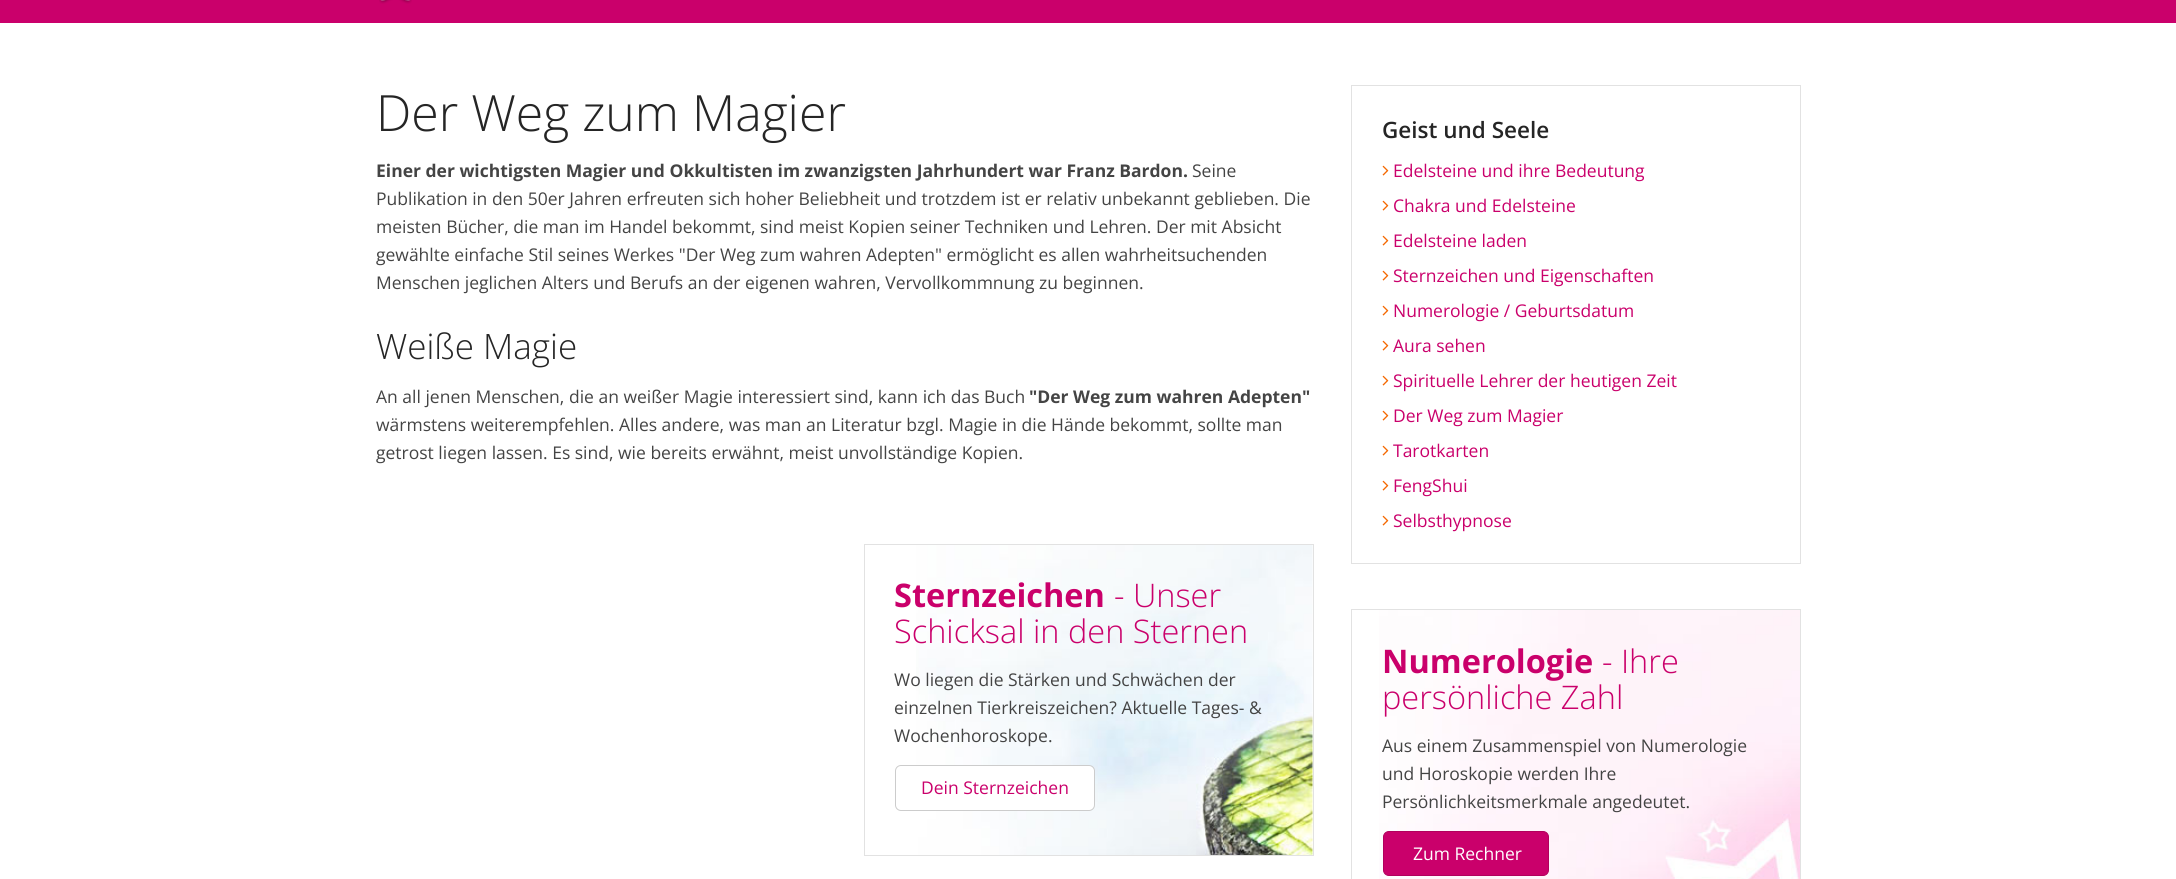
#include <cairo.h>
#include <math.h>
#include <stddef.h>


static void set_color(cairo_t *cr, unsigned color) {
    cairo_set_source_rgb(cr, (color >> 16) / 255.0, (color >> 8 & 255) / 255.0, (color & 255) / 255.0);
}

static void draw_text(cairo_t *cr, double x, double y, const char *s, const char *family, double size, int italic, int bold, unsigned color) {
    cairo_select_font_face(cr, family, italic ? CAIRO_FONT_SLANT_ITALIC : CAIRO_FONT_SLANT_NORMAL,
        bold ? CAIRO_FONT_WEIGHT_BOLD : CAIRO_FONT_WEIGHT_NORMAL);
    cairo_set_font_size(cr, size);
    set_color(cr, color);
    cairo_move_to(cr, x, y);
    cairo_show_text(cr, s);
}

static void fill_rect(cairo_t *cr, double x, double y, double w, double h, unsigned color) {
    set_color(cr, color);
    cairo_rectangle(cr, x, y, w, h);
    cairo_fill(cr);
}

static void rounded_rect(cairo_t *cr, double x, double y, double w, double h, double r) {
    cairo_new_sub_path(cr);
    cairo_arc(cr, x + w - r, y + h - r, r, 0, M_PI / 2);
    cairo_arc(cr, x + r, y + h - r, r, M_PI / 2, M_PI);
    cairo_arc(cr, x + r, y + r, r, M_PI, 1.5 * M_PI);
    cairo_arc(cr, x + w - r, y + r, r, 1.5 * M_PI, 2 * M_PI);
    cairo_close_path(cr);
}

static void draw_image(cairo_t *cr, const char *path, double x, double y, double w, double h) {
    cairo_surface_t *image = cairo_image_surface_create_from_png(path);
    cairo_save(cr);
    cairo_set_source_surface(cr, image, x, y);
    cairo_rectangle(cr, x, y, w, h);
    cairo_fill(cr);
    cairo_restore(cr);
    cairo_surface_destroy(image);
}

int main(void) {
    cairo_surface_t *surface = cairo_image_surface_create(CAIRO_FORMAT_RGB24, 2176, 879);
    cairo_t *cr = cairo_create(surface);
    cairo_font_options_t *options = cairo_font_options_create();
    cairo_font_options_set_hint_metrics(options, CAIRO_HINT_METRICS_OFF);
    cairo_font_options_set_hint_style(options, CAIRO_HINT_STYLE_NONE);
    cairo_set_font_options(cr, options);
    cairo_set_miter_limit(cr, 4);
    set_color(cr, 0xFFFFFF);
    cairo_paint(cr);
    fill_rect(cr, 0, 0, 2176, 23, 0xCA006B);
    draw_image(cr, "assets/img1.png", 379, 0, 33, 4);
    draw_text(cr, 376, 131, "Der Weg zum Magier", "Open Sans Light", 50, 0, 0, 0x252525);
    draw_text(cr, 376, 177, "Einer der wichtigsten Magier und Okkultisten im zwanzigsten Jahrhundert war Franz Bardon.", "Open Sans", 17.5, 0, 1, 0x444444);
    draw_text(cr, 1192, 177, "Seine", "Open Sans", 17.5, 0, 0, 0x444444);
    draw_text(cr, 376, 205, "Publikation in den 50er Jahren erfreuten sich hoher Beliebheit und trotzdem ist er relativ unbekannt geblieben. Die", "Open Sans", 17.5, 0, 0, 0x444444);
    draw_text(cr, 376, 233, "meisten Bücher, die man im Handel bekommt, sind meist Kopien seiner Techniken und Lehren. Der mit Absicht", "Open Sans", 17.5, 0, 0, 0x444444);
    draw_text(cr, 376, 261, "gewählte einfache Stil seines Werkes \"Der Weg zum wahren Adepten\" ermöglicht es allen wahrheitsuchenden", "Open Sans", 17.5, 0, 0, 0x444444);
    draw_text(cr, 376, 289, "Menschen jeglichen Alters und Berufs an der eigenen wahren, Vervollkommnung zu beginnen.", "Open Sans", 17.5, 0, 0, 0x444444);
    draw_text(cr, 376, 359, "Weiße Magie", "Open Sans Light", 35, 0, 0, 0x252525);
    draw_text(cr, 376, 403, "An all jenen Menschen, die an weißer Magie interessiert sind, kann ich das Buch", "Open Sans", 17.5, 0, 0, 0x444444);
    draw_text(cr, 1029, 403, "\"Der Weg zum wahren Adepten\"", "Open Sans", 17.5, 0, 1, 0x444444);
    draw_text(cr, 376, 431, "wärmstens weiterempfehlen. Alles andere, was man an Literatur bzgl. Magie in die Hände bekommt, sollte man", "Open Sans", 17.5, 0, 0, 0x444444);
    draw_text(cr, 376, 459, "getrost liegen lassen. Es sind, wie bereits erwähnt, meist unvollständige Kopien.", "Open Sans", 17.5, 0, 0, 0x444444);
    draw_image(cr, "assets/img2.png", 916, 545, 397, 310);
    cairo_rectangle(cr, 864.5, 544.5, 449, 311);
    set_color(cr, 0xE2E2E2);
    cairo_set_line_width(cr, 1);
    cairo_stroke(cr);
    draw_text(cr, 894, 607, "Sternzeichen", "Open Sans", 32.5, 0, 1, 0xCA006B);
    draw_text(cr, 1114, 607, "- Unser", "Open Sans Light", 32.5, 0, 0, 0xCA006B);
    draw_text(cr, 894, 643, "Schicksal in den Sternen", "Open Sans Light", 32.5, 0, 0, 0xCA006B);
    draw_text(cr, 894, 686, "Wo liegen die Stärken und Schwächen der", "Open Sans", 17.5, 0, 0, 0x444444);
    draw_text(cr, 894, 714, "einzelnen Tierkreiszeichen? Aktuelle Tages- &", "Open Sans", 17.5, 0, 0, 0x444444);
    draw_text(cr, 894, 742, "Wochenhoroskope.", "Open Sans", 17.5, 0, 0, 0x444444);
    set_color(cr, 0xFFFFFF);
    rounded_rect(cr, 895.5, 765.5, 199, 45, 5.5);
    cairo_fill_preserve(cr);
    set_color(cr, 0xCCCCCC);
    cairo_stroke(cr);
    draw_text(cr, 921, 794, "Dein Sternzeichen", "Open Sans", 17.5, 0, 0, 0xCA006B);
    cairo_rectangle(cr, 1351.5, 85.5, 449, 478);
    set_color(cr, 0xE2E2E2);
    cairo_stroke(cr);
    draw_text(cr, 1382, 138, "Geist und Seele", "Open Sans SemiBold", 22.5, 0, 0, 0x252525);
    draw_image(cr, "assets/img3.png", 1382, 165, 7, 11);
    draw_text(cr, 1393, 177, "Edelsteine und ihre Bedeutung", "Open Sans", 17.5, 0, 0, 0xCA006B);
    draw_image(cr, "assets/img3.png", 1382, 200, 7, 11);
    draw_text(cr, 1393, 212, "Chakra und Edelsteine", "Open Sans", 17.5, 0, 0, 0xCA006B);
    draw_image(cr, "assets/img3.png", 1382, 235, 7, 11);
    draw_text(cr, 1393, 247, "Edelsteine laden", "Open Sans", 17.5, 0, 0, 0xCA006B);
    draw_image(cr, "assets/img3.png", 1382, 270, 7, 11);
    draw_text(cr, 1393, 282, "Sternzeichen und Eigenschaften", "Open Sans", 17.5, 0, 0, 0xCA006B);
    draw_image(cr, "assets/img3.png", 1382, 305, 7, 11);
    draw_text(cr, 1393, 317, "Numerologie / Geburtsdatum", "Open Sans", 17.5, 0, 0, 0xCA006B);
    draw_image(cr, "assets/img3.png", 1382, 340, 7, 11);
    draw_text(cr, 1393, 352, "Aura sehen", "Open Sans", 17.5, 0, 0, 0xCA006B);
    draw_image(cr, "assets/img3.png", 1382, 375, 7, 11);
    draw_text(cr, 1393, 387, "Spirituelle Lehrer der heutigen Zeit", "Open Sans", 17.5, 0, 0, 0xCA006B);
    draw_image(cr, "assets/img3.png", 1382, 410, 7, 11);
    draw_text(cr, 1393, 422, "Der Weg zum Magier", "Open Sans", 17.5, 0, 0, 0xCA006B);
    draw_image(cr, "assets/img3.png", 1382, 445, 7, 11);
    draw_text(cr, 1393, 457, "Tarotkarten", "Open Sans", 17.5, 0, 0, 0xCA006B);
    draw_image(cr, "assets/img3.png", 1382, 480, 7, 11);
    draw_text(cr, 1393, 492, "FengShui", "Open Sans", 17.5, 0, 0, 0xCA006B);
    draw_image(cr, "assets/img3.png", 1382, 515, 7, 11);
    draw_text(cr, 1393, 527, "Selbsthypnose", "Open Sans", 17.5, 0, 0, 0xCA006B);
    draw_image(cr, "assets/img4.png", 1379, 610, 421, 269);
    cairo_rectangle(cr, 1351.5, 609.5, 449, 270);
    set_color(cr, 0xE2E2E2);
    cairo_stroke(cr);
    draw_text(cr, 1382, 673, "Numerologie", "Open Sans", 32.5, 0, 1, 0xCA006B);
    draw_text(cr, 1602, 673, "- Ihre", "Open Sans Light", 32.5, 0, 0, 0xCA006B);
    draw_text(cr, 1382, 709, "persönliche Zahl", "Open Sans Light", 32.5, 0, 0, 0xCA006B);
    draw_text(cr, 1382, 752, "Aus einem Zusammenspiel von Numerologie", "Open Sans", 17.5, 0, 0, 0x444444);
    draw_text(cr, 1382, 780, "und Horoskopie werden Ihre", "Open Sans", 17.5, 0, 0, 0x444444);
    draw_text(cr, 1382, 808, "Persönlichkeitsmerkmale angedeutet.", "Open Sans", 17.5, 0, 0, 0x444444);
    set_color(cr, 0xCA006B);
    rounded_rect(cr, 1383.5, 831.5, 165, 44, 5.5);
    cairo_fill_preserve(cr);
    set_color(cr, 0xB1005D);
    cairo_stroke(cr);
    draw_text(cr, 1413, 860, "Zum Rechner", "Open Sans", 17.5, 0, 0, 0xFFFFFF);
    cairo_surface_write_to_png(surface, "output.png");
    cairo_font_options_destroy(options);
    cairo_destroy(cr);
    cairo_surface_destroy(surface);
    return 0;
}
